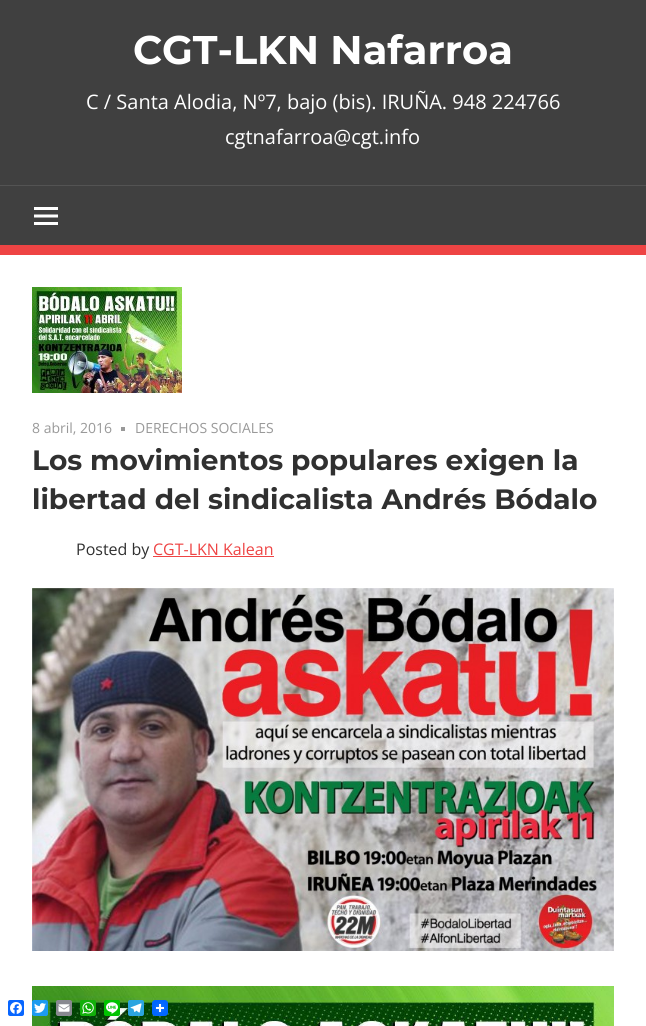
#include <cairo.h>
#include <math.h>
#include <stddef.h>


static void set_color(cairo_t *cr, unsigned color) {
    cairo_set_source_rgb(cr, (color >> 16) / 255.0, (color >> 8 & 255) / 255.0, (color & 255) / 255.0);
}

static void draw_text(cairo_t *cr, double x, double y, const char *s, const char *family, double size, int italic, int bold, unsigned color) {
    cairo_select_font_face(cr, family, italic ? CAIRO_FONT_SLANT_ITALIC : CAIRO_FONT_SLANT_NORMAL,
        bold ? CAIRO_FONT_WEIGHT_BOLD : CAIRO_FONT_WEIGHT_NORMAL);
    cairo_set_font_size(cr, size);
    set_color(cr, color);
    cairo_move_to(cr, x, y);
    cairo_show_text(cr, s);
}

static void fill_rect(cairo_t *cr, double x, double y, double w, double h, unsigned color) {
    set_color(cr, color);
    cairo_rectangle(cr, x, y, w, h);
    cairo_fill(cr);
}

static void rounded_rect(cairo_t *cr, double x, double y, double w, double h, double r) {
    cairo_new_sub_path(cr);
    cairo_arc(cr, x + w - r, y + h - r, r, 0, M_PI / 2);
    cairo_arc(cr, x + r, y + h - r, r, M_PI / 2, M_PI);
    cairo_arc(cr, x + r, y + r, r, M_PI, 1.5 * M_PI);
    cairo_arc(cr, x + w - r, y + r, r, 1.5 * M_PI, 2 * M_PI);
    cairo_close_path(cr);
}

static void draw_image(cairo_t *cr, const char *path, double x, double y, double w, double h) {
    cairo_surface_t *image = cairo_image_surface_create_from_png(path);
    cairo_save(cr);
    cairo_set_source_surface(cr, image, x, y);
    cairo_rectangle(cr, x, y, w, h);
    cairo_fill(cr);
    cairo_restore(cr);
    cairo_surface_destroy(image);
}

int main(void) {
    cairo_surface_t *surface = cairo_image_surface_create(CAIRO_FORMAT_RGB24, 646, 1026);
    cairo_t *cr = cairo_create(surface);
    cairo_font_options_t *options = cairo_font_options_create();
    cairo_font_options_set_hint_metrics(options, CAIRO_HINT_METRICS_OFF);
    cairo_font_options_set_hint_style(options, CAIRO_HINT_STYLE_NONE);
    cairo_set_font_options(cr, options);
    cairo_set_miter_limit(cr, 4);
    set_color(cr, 0x404040);
    cairo_paint(cr);
    fill_rect(cr, 0, 245, 646, 10, 0xEE4444);
    draw_text(cr, 133, 64, "CGT-LKN Nafarroa", "Montserrat", 40, 0, 1, 0xFFFFFF);
    draw_text(cr, 86, 109, "C / Santa Alodia, Nº7, bajo (bis). IRUÑA. 948 224766", "Open Sans", 20, 0, 0, 0xFFFFFF);
    draw_text(cr, 225, 144, "cgtnafarroa@cgt.info", "Open Sans", 20, 0, 0, 0xFFFFFF);
    fill_rect(cr, 0, 185, 646, 1, 0x535353);
    draw_image(cr, "assets/img1.png", 34, 207, 24, 18);
    fill_rect(cr, 0, 255, 646, 771, 0xFFFFFF);
    draw_image(cr, "assets/img2.png", 32, 287, 150, 106);
    draw_text(cr, 32, 433, "8 abril, 2016", "Open Sans", 14, 0, 0, 0x999999);
    fill_rect(cr, 121, 427, 4, 4, 0x999999);
    draw_text(cr, 135, 433, "DERECHOS SOCIALES", "Open Sans", 14, 0, 0, 0x999999);
    draw_text(cr, 32, 470, "Los movimientos populares exigen la", "Montserrat", 28, 0, 1, 0x303030);
    draw_text(cr, 32, 509, "libertad del sindicalista Andrés Bódalo", "Montserrat", 28, 0, 1, 0x303030);
    draw_text(cr, 76, 555, "Posted by", "Open Sans", 16, 0, 0, 0x303030);
    draw_text(cr, 153, 555, "CGT-LKN Kalean", "Open Sans", 16, 0, 0, 0xEE4444);
    fill_rect(cr, 153, 556, 121, 1, 0xEE4444);
    draw_image(cr, "assets/img3.png", 32, 588, 582, 363);
    draw_image(cr, "assets/img4.png", 32, 986, 582, 40);
    set_color(cr, 0x0866FF);
    rounded_rect(cr, 8, 1000, 16, 16, 2);
    cairo_fill(cr);
    draw_image(cr, "assets/img5.png", 10, 1002, 12, 12);
    set_color(cr, 0x1D9BF0);
    rounded_rect(cr, 32, 1000, 16, 16, 2);
    cairo_fill(cr);
    draw_image(cr, "assets/img6.png", 34, 1003, 12, 10);
    set_color(cr, 0x888990);
    rounded_rect(cr, 56, 1000, 16, 16, 2);
    cairo_fill(cr);
    draw_image(cr, "assets/img7.png", 58, 1004, 12, 8);
    set_color(cr, 0x12AF0A);
    rounded_rect(cr, 80, 1000, 16, 16, 2);
    cairo_fill(cr);
    draw_image(cr, "assets/img8.png", 82, 1002, 12, 12);
    set_color(cr, 0x00C300);
    rounded_rect(cr, 104, 1000, 16, 16, 2);
    cairo_fill(cr);
    draw_image(cr, "assets/img9.png", 106, 1002, 12, 12);
    set_color(cr, 0x2CA5E0);
    rounded_rect(cr, 128, 1000, 16, 16, 2);
    cairo_fill(cr);
    draw_image(cr, "assets/img10.png", 130, 1003, 12, 10);
    draw_image(cr, "assets/img11.png", 152, 1000, 16, 16);
    cairo_surface_write_to_png(surface, "output.png");
    cairo_font_options_destroy(options);
    cairo_destroy(cr);
    cairo_surface_destroy(surface);
    return 0;
}
